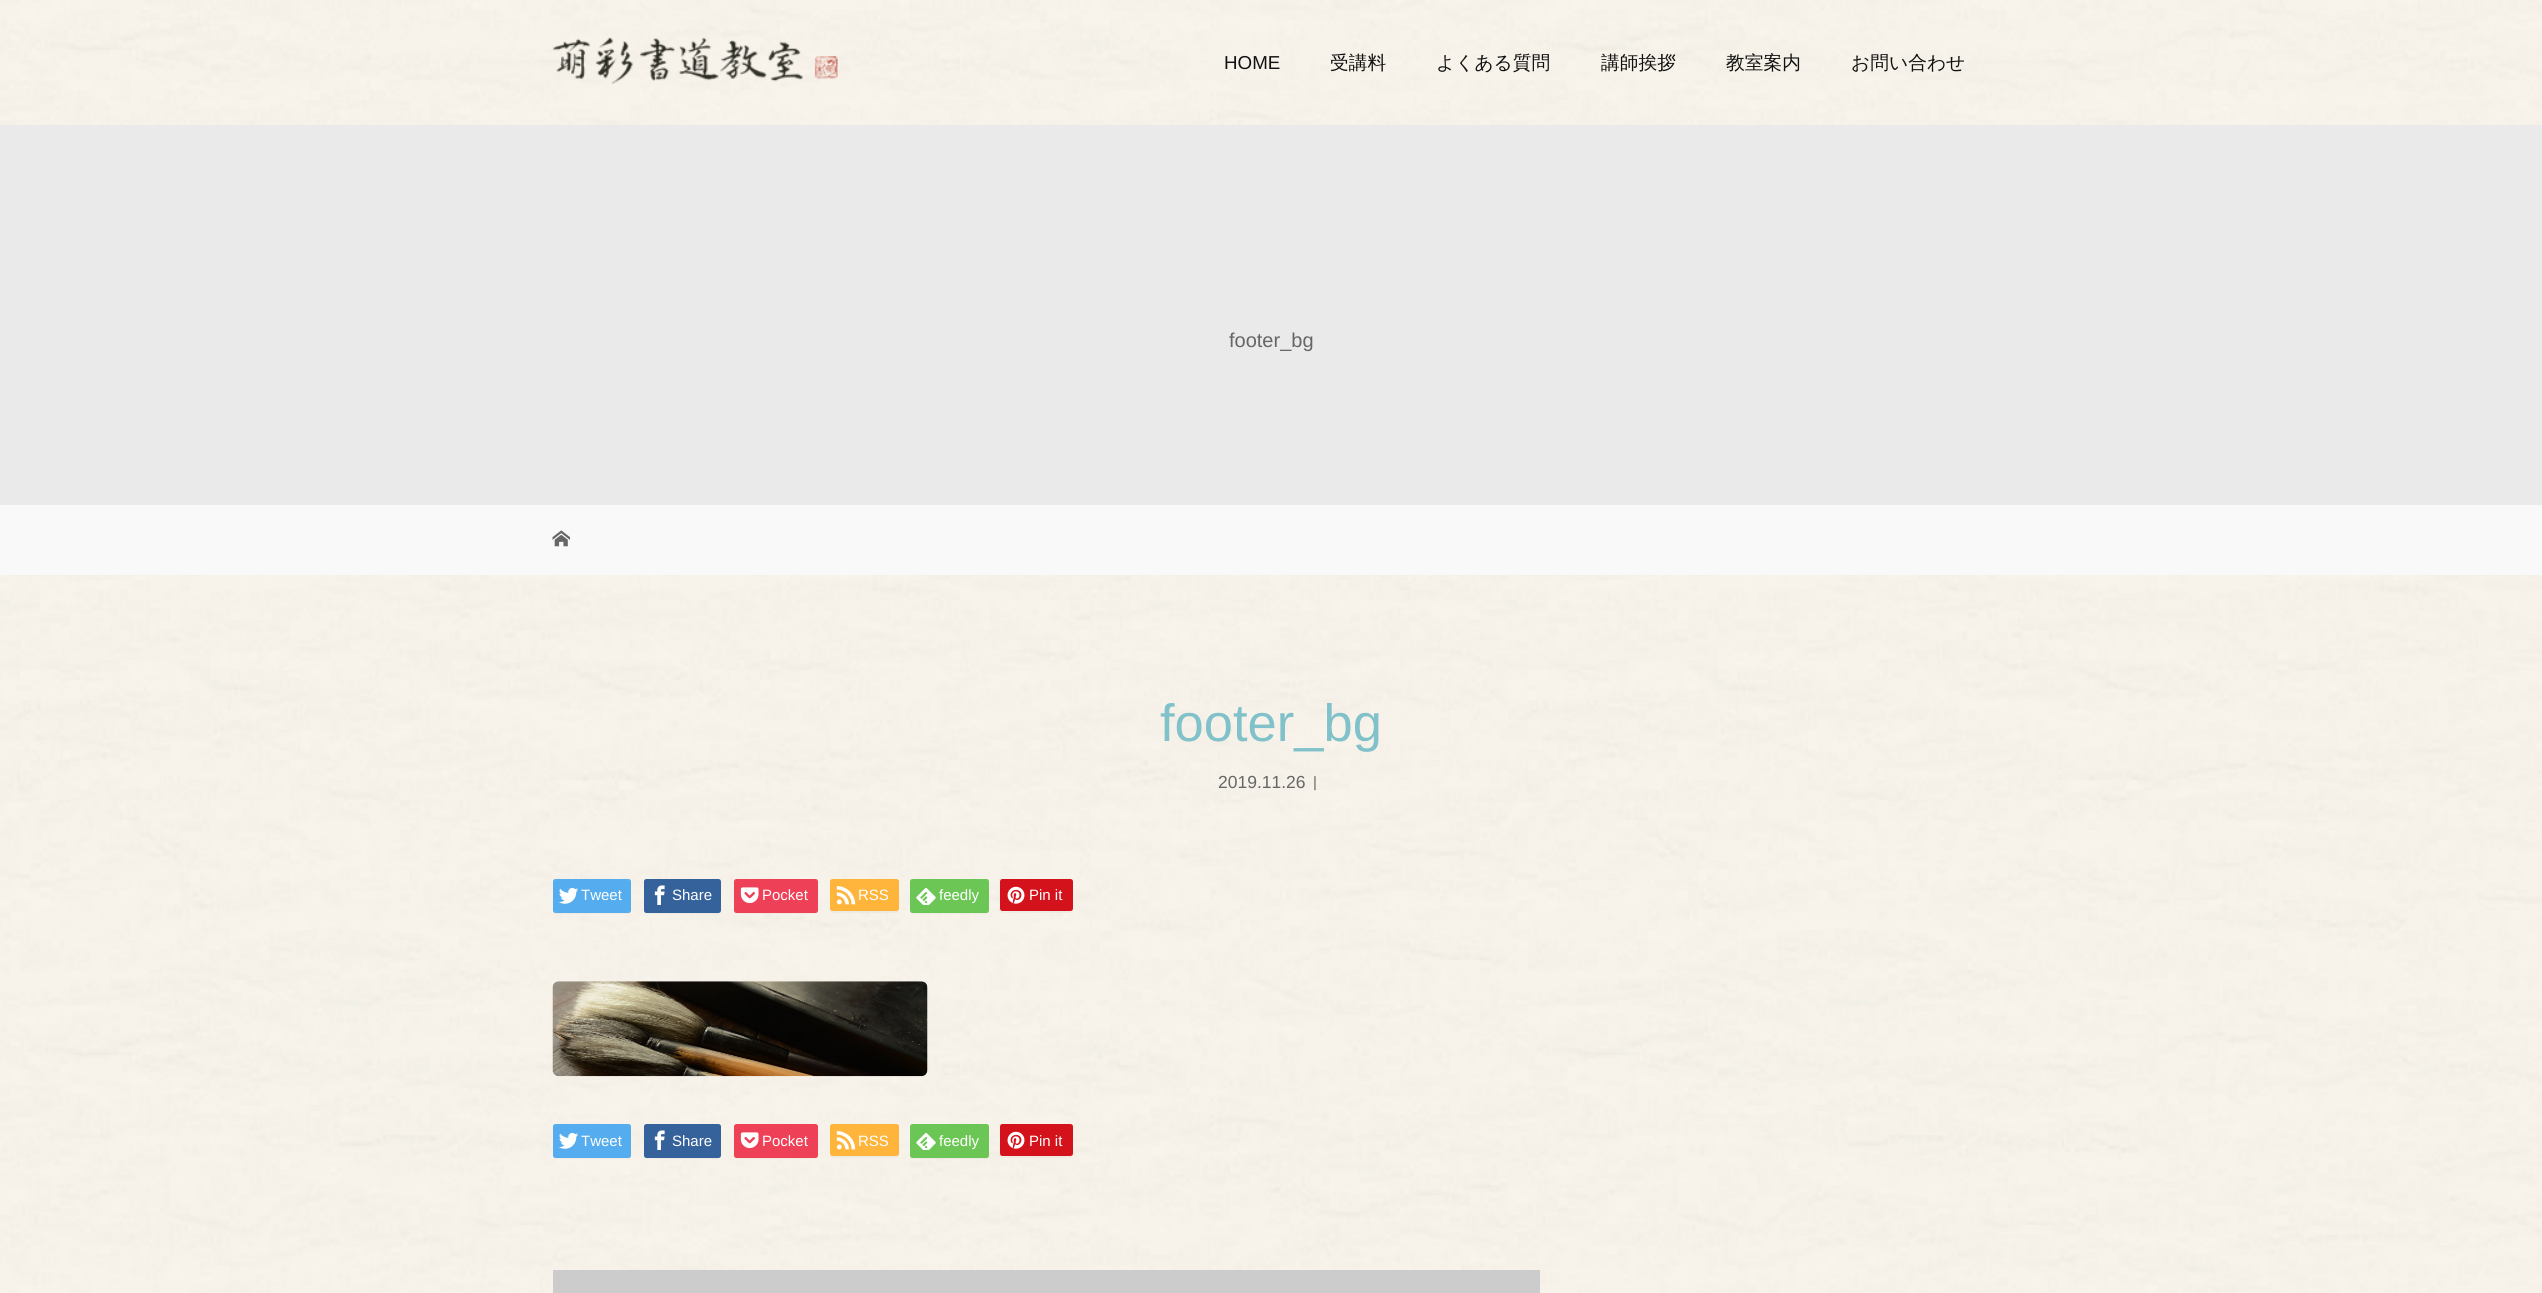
#include <cairo.h>
#include <math.h>
#include <stddef.h>


static void set_color(cairo_t *cr, unsigned color) {
    cairo_set_source_rgb(cr, (color >> 16) / 255.0, (color >> 8 & 255) / 255.0, (color & 255) / 255.0);
}

static void draw_text(cairo_t *cr, double x, double y, const char *s, const char *family, double size, int italic, int bold, unsigned color) {
    cairo_select_font_face(cr, family, italic ? CAIRO_FONT_SLANT_ITALIC : CAIRO_FONT_SLANT_NORMAL,
        bold ? CAIRO_FONT_WEIGHT_BOLD : CAIRO_FONT_WEIGHT_NORMAL);
    cairo_set_font_size(cr, size);
    set_color(cr, color);
    cairo_move_to(cr, x, y);
    cairo_show_text(cr, s);
}

static void fill_rect(cairo_t *cr, double x, double y, double w, double h, unsigned color) {
    set_color(cr, color);
    cairo_rectangle(cr, x, y, w, h);
    cairo_fill(cr);
}

static void rounded_rect(cairo_t *cr, double x, double y, double w, double h, double r) {
    cairo_new_sub_path(cr);
    cairo_arc(cr, x + w - r, y + h - r, r, 0, M_PI / 2);
    cairo_arc(cr, x + r, y + h - r, r, M_PI / 2, M_PI);
    cairo_arc(cr, x + r, y + r, r, M_PI, 1.5 * M_PI);
    cairo_arc(cr, x + w - r, y + r, r, 1.5 * M_PI, 2 * M_PI);
    cairo_close_path(cr);
}

static void draw_image(cairo_t *cr, const char *path, double x, double y, double w, double h) {
    cairo_surface_t *image = cairo_image_surface_create_from_png(path);
    cairo_save(cr);
    cairo_set_source_surface(cr, image, x, y);
    cairo_rectangle(cr, x, y, w, h);
    cairo_fill(cr);
    cairo_restore(cr);
    cairo_surface_destroy(image);
}

int main(void) {
    cairo_surface_t *surface = cairo_image_surface_create(CAIRO_FORMAT_RGB24, 2542, 1293);
    cairo_t *cr = cairo_create(surface);
    cairo_font_options_t *options = cairo_font_options_create();
    cairo_font_options_set_hint_metrics(options, CAIRO_HINT_METRICS_OFF);
    cairo_font_options_set_hint_style(options, CAIRO_HINT_STYLE_NONE);
    cairo_set_font_options(cr, options);
    cairo_set_miter_limit(cr, 4);
    set_color(cr, 0xFFFFFF);
    cairo_paint(cr);
    draw_image(cr, "assets/img1.png", 0, 575, 2542, 718);
    draw_image(cr, "assets/img2.png", 0, 0, 2542, 125);
    draw_image(cr, "assets/img3.png", 552, 37, 286, 47);
    draw_text(cr, 1224, 69, "HOME", "Liberation Sans", 18.75, 0, 0, 0x111111);
    draw_text(cr, 1330, 69, "受講料", "WenQuanYi Zen Hei Medium", 18.75, 0, 0, 0x111111);
    draw_text(cr, 1436, 69, "よくある質問", "WenQuanYi Zen Hei Medium", 18.75, 0, 0, 0x111111);
    draw_text(cr, 1601, 69, "講師挨拶", "WenQuanYi Zen Hei Medium", 18.75, 0, 0, 0x111111);
    draw_text(cr, 1726, 69, "教室案内", "WenQuanYi Zen Hei Medium", 18.75, 0, 0, 0x111111);
    draw_text(cr, 1851, 69, "お問い合わせ", "WenQuanYi Zen Hei Medium", 18.75, 0, 0, 0x111111);
    fill_rect(cr, 0, 125, 2542, 380, 0xEAEAEA);
    draw_text(cr, 1229, 347, "footer_bg", "Liberation Sans", 20, 0, 0, 0x666666);
    fill_rect(cr, 0, 505, 2542, 70, 0xF9F9F9);
    draw_image(cr, "assets/img4.png", 552, 530, 18, 17);
    draw_text(cr, 1160, 741, "footer_bg", "Liberation Sans", 52.5, 0, 0, 0x80C1CA);
    draw_text(cr, 1218, 788, "2019.11.26", "Liberation Sans", 17.5, 0, 0, 0x666666);
    draw_text(cr, 1313, 787, "|", "Liberation Sans", 15, 0, 0, 0x666666);
    cairo_set_source_rgba(cr, 0, 0, 0, 0.03);
    cairo_new_path(cr);
    cairo_move_to(cr, 553, 912);
    cairo_line_to(cr, 554, 913);
    cairo_line_to(cr, 556, 914);
    cairo_line_to(cr, 629, 914);
    cairo_curve_to(cr, 631, 913, 631, 912, 631, 911);
    cairo_line_to(cr, 630, 912);
    cairo_line_to(cr, 555, 912);
    cairo_close_path(cr);
    cairo_fill(cr);
    set_color(cr, 0x55ACEE);
    rounded_rect(cr, 553, 879, 78, 34, 2.5);
    cairo_fill(cr);
    draw_image(cr, "assets/img5.png", 559, 887, 19, 17);
    draw_text(cr, 581, 900, "Tweet", "Liberation Sans", 15, 0, 0, 0xFFFFFF);
    cairo_set_source_rgba(cr, 0, 0, 0, 0.03);
    cairo_new_path(cr);
    cairo_move_to(cr, 644, 911);
    cairo_curve_to(cr, 644, 913, 645, 914, 646, 914);
    cairo_line_to(cr, 706, 914);
    cairo_curve_to(cr, 707, 914, 721, 917, 721, 911);
    cairo_line_to(cr, 720, 912);
    cairo_line_to(cr, 658, 912);
    cairo_curve_to(cr, 658, 912, 646, 915, 644, 911);
    cairo_close_path(cr);
    cairo_fill(cr);
    set_color(cr, 0x35629A);
    rounded_rect(cr, 644, 879, 77, 34, 2.5);
    cairo_fill(cr);
    draw_image(cr, "assets/img6.png", 654, 885, 11, 20);
    draw_text(cr, 672, 900, "Share", "Liberation Sans", 15, 0, 0, 0xFFFFFF);
    cairo_set_source_rgba(cr, 0, 0, 0, 0.03);
    cairo_new_path(cr);
    cairo_move_to(cr, 734, 911);
    cairo_line_to(cr, 734, 912);
    cairo_curve_to(cr, 734, 913, 735, 914, 736, 914);
    cairo_line_to(cr, 816, 914);
    cairo_curve_to(cr, 817, 914, 818, 913, 818, 912);
    cairo_line_to(cr, 818, 882);
    cairo_line_to(cr, 817, 881);
    cairo_line_to(cr, 818, 905);
    cairo_curve_to(cr, 818, 907, 819, 912, 815, 912);
    cairo_line_to(cr, 736, 912);
    cairo_curve_to(cr, 735, 912, 734, 912, 734, 911);
    cairo_close_path(cr);
    cairo_fill(cr);
    set_color(cr, 0xEE4056);
    rounded_rect(cr, 734, 879, 84, 34, 2.5);
    cairo_fill(cr);
    draw_image(cr, "assets/img7.png", 740, 887, 19, 17);
    draw_text(cr, 762, 900, "Pocket", "Liberation Sans", 15, 0, 0, 0xFFFFFF);
    cairo_set_source_rgba(cr, 0, 0, 0, 0.03);
    cairo_new_path(cr);
    cairo_move_to(cr, 830, 909);
    cairo_line_to(cr, 830, 911);
    cairo_curve_to(cr, 832, 915, 841, 913, 843, 913);
    cairo_line_to(cr, 886, 913);
    cairo_curve_to(cr, 903, 913, 899, 915, 899, 896);
    cairo_line_to(cr, 899, 881);
    cairo_line_to(cr, 899, 909);
    cairo_curve_to(cr, 899, 910, 898, 911, 896, 911);
    cairo_line_to(cr, 832, 911);
    cairo_curve_to(cr, 831, 911, 830, 910, 830, 909);
    cairo_close_path(cr);
    cairo_fill(cr);
    set_color(cr, 0xFFB53C);
    rounded_rect(cr, 830, 879, 69, 32, 2.5);
    cairo_fill(cr);
    draw_image(cr, "assets/img8.png", 836, 886, 20, 19);
    draw_text(cr, 858, 900, "RSS", "Liberation Sans", 15, 0, 0, 0xFFFFFF);
    cairo_set_source_rgba(cr, 0, 0, 0, 0.03);
    cairo_new_path(cr);
    cairo_move_to(cr, 910, 910);
    cairo_curve_to(cr, 910, 912, 910, 914, 912, 914);
    cairo_line_to(cr, 986, 914);
    cairo_curve_to(cr, 990, 914, 989, 908, 989, 907);
    cairo_line_to(cr, 989, 881);
    cairo_line_to(cr, 989, 910);
    cairo_curve_to(cr, 989, 911, 988, 912, 986, 912);
    cairo_line_to(cr, 912, 912);
    cairo_curve_to(cr, 911, 912, 910, 911, 910, 910);
    cairo_close_path(cr);
    cairo_fill(cr);
    set_color(cr, 0x6CC655);
    rounded_rect(cr, 910, 879, 79, 34, 2.5);
    cairo_fill(cr);
    draw_image(cr, "assets/img9.png", 916, 888, 20, 17);
    draw_text(cr, 939, 900, "feedly", "Liberation Sans", 15, 0, 0, 0xFFFFFF);
    cairo_set_source_rgba(cr, 0, 0, 0, 0.03);
    cairo_new_path(cr);
    cairo_move_to(cr, 1000, 909);
    cairo_line_to(cr, 1000, 910);
    cairo_curve_to(cr, 1000, 912, 1001, 913, 1002, 913);
    cairo_line_to(cr, 1070, 913);
    cairo_curve_to(cr, 1072, 913, 1073, 912, 1073, 910);
    cairo_line_to(cr, 1073, 882);
    cairo_line_to(cr, 1072, 881);
    cairo_line_to(cr, 1072, 904);
    cairo_curve_to(cr, 1072, 914, 1071, 911, 1059, 911);
    cairo_line_to(cr, 1014, 911);
    cairo_curve_to(cr, 1009, 911, 1000, 913, 1000, 909);
    cairo_close_path(cr);
    cairo_fill(cr);
    set_color(cr, 0xD4121C);
    rounded_rect(cr, 1000, 879, 73, 32, 2.5);
    cairo_fill(cr);
    draw_image(cr, "assets/img10.png", 1007, 886, 18, 18);
    draw_text(cr, 1029, 900, "Pin it", "Liberation Sans", 15, 0, 0, 0xFFFFFF);
    draw_image(cr, "assets/img11.png", 552, 981, 376, 96);
    cairo_set_source_rgba(cr, 0, 0, 0, 0.03);
    cairo_new_path(cr);
    cairo_move_to(cr, 553, 1156);
    cairo_line_to(cr, 554, 1158);
    cairo_line_to(cr, 556, 1159);
    cairo_line_to(cr, 629, 1159);
    cairo_curve_to(cr, 631, 1158, 631, 1157, 631, 1156);
    cairo_line_to(cr, 630, 1157);
    cairo_line_to(cr, 555, 1158);
    cairo_close_path(cr);
    cairo_fill(cr);
    set_color(cr, 0x55ACEE);
    rounded_rect(cr, 553, 1124, 78, 34, 2.5);
    cairo_fill(cr);
    draw_image(cr, "assets/img5.png", 559, 1132, 19, 17);
    draw_text(cr, 581, 1146, "Tweet", "Liberation Sans", 15, 0, 0, 0xFFFFFF);
    set_color(cr, 0xEFEBE2);
    cairo_new_path(cr);
    cairo_move_to(cr, 644, 1156);
    cairo_curve_to(cr, 644, 1158, 645, 1159, 646, 1159);
    cairo_line_to(cr, 706, 1159);
    cairo_curve_to(cr, 707, 1159, 721, 1162, 721, 1156);
    cairo_line_to(cr, 720, 1157);
    cairo_line_to(cr, 658, 1158);
    cairo_curve_to(cr, 658, 1158, 646, 1160, 644, 1156);
    cairo_close_path(cr);
    cairo_fill(cr);
    set_color(cr, 0x35629A);
    rounded_rect(cr, 644, 1124, 77, 34, 2.5);
    cairo_fill(cr);
    draw_image(cr, "assets/img6.png", 654, 1130, 11, 20);
    draw_text(cr, 672, 1146, "Share", "Liberation Sans", 15, 0, 0, 0xFFFFFF);
    cairo_set_source_rgba(cr, 0, 0, 0, 0.03);
    cairo_new_path(cr);
    cairo_move_to(cr, 734, 1156);
    cairo_curve_to(cr, 734, 1158, 735, 1159, 736, 1159);
    cairo_line_to(cr, 816, 1159);
    cairo_curve_to(cr, 817, 1159, 818, 1158, 818, 1156);
    cairo_line_to(cr, 818, 1128);
    cairo_line_to(cr, 817, 1126);
    cairo_line_to(cr, 818, 1150);
    cairo_curve_to(cr, 818, 1152, 819, 1157, 815, 1158);
    cairo_line_to(cr, 736, 1158);
    cairo_curve_to(cr, 735, 1157, 734, 1157, 734, 1156);
    cairo_close_path(cr);
    cairo_fill(cr);
    set_color(cr, 0xEE4056);
    rounded_rect(cr, 734, 1124, 84, 34, 2.5);
    cairo_fill(cr);
    draw_image(cr, "assets/img7.png", 740, 1132, 19, 17);
    draw_text(cr, 762, 1146, "Pocket", "Liberation Sans", 15, 0, 0, 0xFFFFFF);
    set_color(cr, 0xEFEBE2);
    cairo_new_path(cr);
    cairo_move_to(cr, 830, 1154);
    cairo_line_to(cr, 830, 1156);
    cairo_curve_to(cr, 832, 1160, 841, 1158, 843, 1158);
    cairo_line_to(cr, 886, 1158);
    cairo_curve_to(cr, 903, 1158, 899, 1160, 899, 1142);
    cairo_line_to(cr, 899, 1126);
    cairo_line_to(cr, 899, 1154);
    cairo_curve_to(cr, 899, 1155, 898, 1156, 896, 1156);
    cairo_line_to(cr, 832, 1156);
    cairo_curve_to(cr, 831, 1156, 830, 1155, 830, 1154);
    cairo_close_path(cr);
    cairo_fill(cr);
    set_color(cr, 0xFFB53C);
    rounded_rect(cr, 830, 1124, 69, 32, 2.5);
    cairo_fill(cr);
    draw_image(cr, "assets/img8.png", 836, 1131, 20, 19);
    draw_text(cr, 858, 1146, "RSS", "Liberation Sans", 15, 0, 0, 0xFFFFFF);
    cairo_set_source_rgba(cr, 0, 0, 0, 0.03);
    cairo_new_path(cr);
    cairo_move_to(cr, 910, 1155);
    cairo_curve_to(cr, 910, 1157, 910, 1159, 912, 1159);
    cairo_line_to(cr, 986, 1159);
    cairo_curve_to(cr, 990, 1159, 989, 1153, 989, 1152);
    cairo_line_to(cr, 989, 1126);
    cairo_line_to(cr, 989, 1155);
    cairo_curve_to(cr, 989, 1156, 988, 1158, 986, 1158);
    cairo_line_to(cr, 912, 1158);
    cairo_curve_to(cr, 911, 1158, 910, 1156, 910, 1155);
    cairo_close_path(cr);
    cairo_fill(cr);
    set_color(cr, 0x6CC655);
    rounded_rect(cr, 910, 1124, 79, 34, 2.5);
    cairo_fill(cr);
    draw_image(cr, "assets/img9.png", 916, 1133, 20, 17);
    draw_text(cr, 939, 1146, "feedly", "Liberation Sans", 15, 0, 0, 0xFFFFFF);
    cairo_set_source_rgba(cr, 0, 0, 0, 0.03);
    cairo_new_path(cr);
    cairo_move_to(cr, 1000, 1154);
    cairo_line_to(cr, 1000, 1156);
    cairo_curve_to(cr, 1000, 1157, 1001, 1158, 1002, 1158);
    cairo_line_to(cr, 1070, 1158);
    cairo_curve_to(cr, 1072, 1158, 1073, 1157, 1073, 1156);
    cairo_line_to(cr, 1073, 1128);
    cairo_line_to(cr, 1072, 1126);
    cairo_line_to(cr, 1072, 1149);
    cairo_curve_to(cr, 1072, 1159, 1071, 1156, 1059, 1156);
    cairo_line_to(cr, 1014, 1156);
    cairo_curve_to(cr, 1009, 1156, 1000, 1158, 1000, 1154);
    cairo_close_path(cr);
    cairo_fill(cr);
    set_color(cr, 0xD4121C);
    rounded_rect(cr, 1000, 1124, 73, 32, 2.5);
    cairo_fill(cr);
    draw_image(cr, "assets/img10.png", 1007, 1131, 18, 18);
    draw_text(cr, 1029, 1146, "Pin it", "Liberation Sans", 15, 0, 0, 0xFFFFFF);
    fill_rect(cr, 553, 1270, 987, 23, 0xCCCCCC);
    cairo_surface_write_to_png(surface, "output.png");
    cairo_font_options_destroy(options);
    cairo_destroy(cr);
    cairo_surface_destroy(surface);
    return 0;
}
